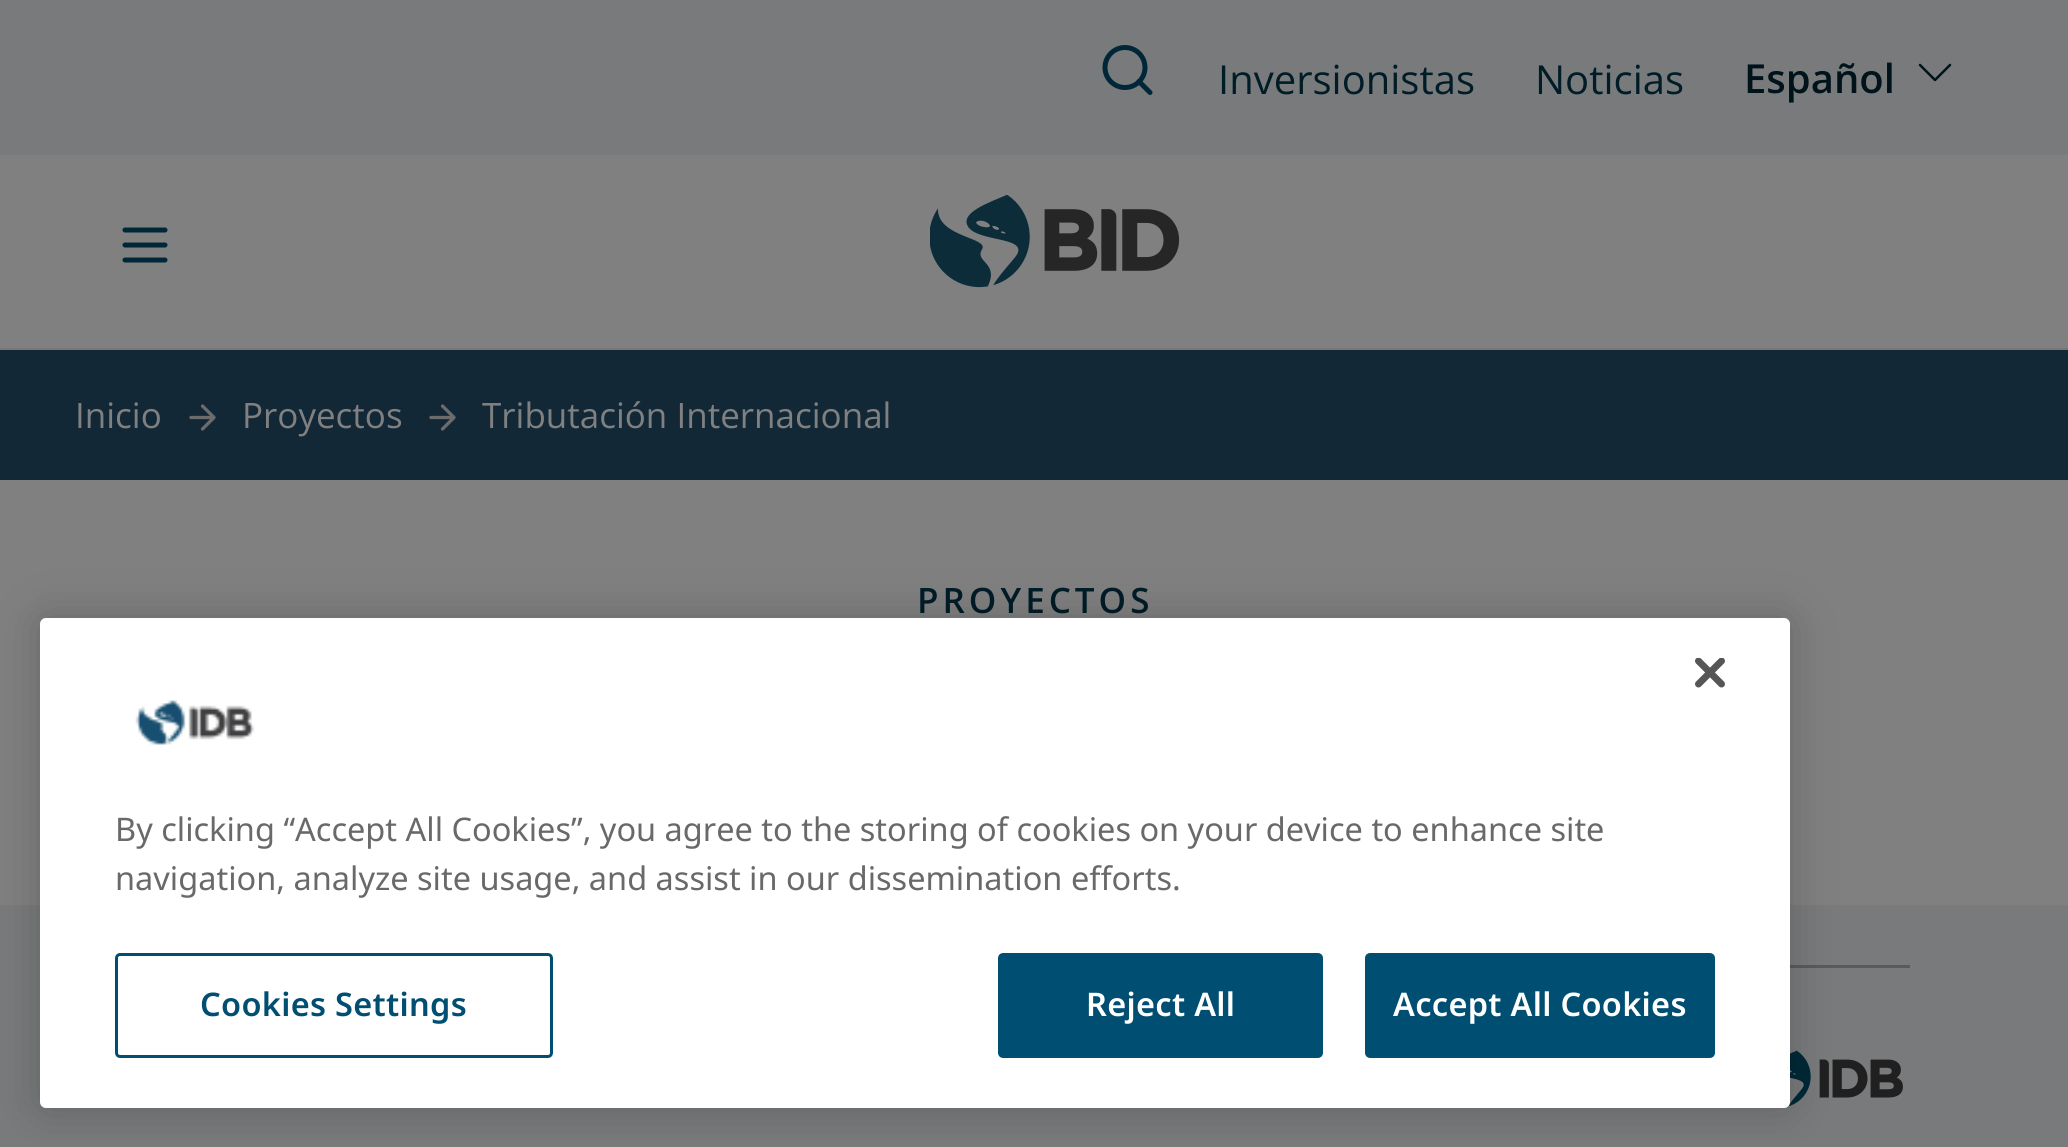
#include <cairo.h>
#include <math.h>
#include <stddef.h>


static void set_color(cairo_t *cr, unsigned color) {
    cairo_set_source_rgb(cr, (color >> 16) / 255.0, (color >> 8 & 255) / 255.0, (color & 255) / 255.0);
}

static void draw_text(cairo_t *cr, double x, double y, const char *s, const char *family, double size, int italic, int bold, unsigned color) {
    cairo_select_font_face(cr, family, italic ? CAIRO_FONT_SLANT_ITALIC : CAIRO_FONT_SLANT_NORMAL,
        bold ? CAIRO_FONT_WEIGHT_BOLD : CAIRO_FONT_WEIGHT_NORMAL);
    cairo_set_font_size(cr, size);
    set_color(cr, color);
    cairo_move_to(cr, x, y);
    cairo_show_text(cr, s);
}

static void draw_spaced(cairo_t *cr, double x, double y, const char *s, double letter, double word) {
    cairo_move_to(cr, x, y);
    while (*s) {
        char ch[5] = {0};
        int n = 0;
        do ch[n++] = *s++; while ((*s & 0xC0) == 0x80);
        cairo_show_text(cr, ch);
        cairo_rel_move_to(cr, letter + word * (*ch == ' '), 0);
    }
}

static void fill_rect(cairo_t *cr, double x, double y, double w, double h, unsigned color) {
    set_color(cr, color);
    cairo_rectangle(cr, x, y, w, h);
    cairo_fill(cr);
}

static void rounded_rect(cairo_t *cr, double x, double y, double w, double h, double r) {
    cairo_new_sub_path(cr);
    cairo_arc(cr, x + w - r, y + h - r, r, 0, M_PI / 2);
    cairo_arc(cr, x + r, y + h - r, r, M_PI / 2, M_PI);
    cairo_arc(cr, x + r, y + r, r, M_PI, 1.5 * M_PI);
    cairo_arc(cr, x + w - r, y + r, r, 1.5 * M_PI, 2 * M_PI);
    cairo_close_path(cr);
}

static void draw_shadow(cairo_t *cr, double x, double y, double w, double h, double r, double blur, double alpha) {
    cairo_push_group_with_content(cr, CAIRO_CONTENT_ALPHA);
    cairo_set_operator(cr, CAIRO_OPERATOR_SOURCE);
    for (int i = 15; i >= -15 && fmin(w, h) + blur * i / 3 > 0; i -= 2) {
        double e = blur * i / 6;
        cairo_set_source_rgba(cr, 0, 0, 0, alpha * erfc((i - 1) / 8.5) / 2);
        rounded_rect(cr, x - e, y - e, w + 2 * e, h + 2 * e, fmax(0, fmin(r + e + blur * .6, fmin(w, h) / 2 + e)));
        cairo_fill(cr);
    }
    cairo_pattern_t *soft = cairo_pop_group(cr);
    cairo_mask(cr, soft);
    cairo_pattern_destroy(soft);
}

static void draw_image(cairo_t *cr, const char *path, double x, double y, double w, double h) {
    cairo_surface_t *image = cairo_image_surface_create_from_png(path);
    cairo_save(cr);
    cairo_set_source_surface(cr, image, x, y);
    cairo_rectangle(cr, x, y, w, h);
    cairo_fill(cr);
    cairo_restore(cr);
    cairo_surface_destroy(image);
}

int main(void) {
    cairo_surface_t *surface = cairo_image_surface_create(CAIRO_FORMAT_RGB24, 2068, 1147);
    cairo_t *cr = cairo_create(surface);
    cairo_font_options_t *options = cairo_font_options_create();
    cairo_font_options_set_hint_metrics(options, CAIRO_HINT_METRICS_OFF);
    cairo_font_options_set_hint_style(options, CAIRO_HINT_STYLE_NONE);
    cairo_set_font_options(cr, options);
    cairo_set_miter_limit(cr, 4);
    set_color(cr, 0x808080);
    cairo_paint(cr);
    fill_rect(cr, 0, 348, 2068, 2, 0x777777);
    fill_rect(cr, 0, 0, 2068, 155, 0x787A7B);
    cairo_arc(cr, 1125, 67.5, 20, 0, 2 * M_PI);
    set_color(cr, 0x002738);
    cairo_set_line_width(cr, 5);
    cairo_stroke(cr);
    cairo_new_path(cr);
    cairo_move_to(cr, 1150, 92.5);
    cairo_line_to(cr, 1139, 81.5);
    cairo_set_line_cap(cr, CAIRO_LINE_CAP_ROUND);
    cairo_set_line_join(cr, CAIRO_LINE_JOIN_ROUND);
    cairo_stroke(cr);
    draw_text(cr, 1218, 94, "Inversionistas", "Open Sans", 40, 0, 0, 0x001C27);
    draw_text(cr, 1535, 94, "Noticias", "Open Sans", 40, 0, 0, 0x001C27);
    draw_text(cr, 1744, 93, "Español", "Open Sans SemiBold", 40, 0, 0, 0x00131B);
    draw_image(cr, "assets/img1.png", 1918, 63, 34, 19);
    cairo_new_path(cr);
    cairo_move_to(cr, 125, 245);
    cairo_line_to(cr, 165, 245);
    cairo_move_to(cr, 125, 230);
    cairo_line_to(cr, 165, 230);
    cairo_move_to(cr, 125, 260);
    cairo_line_to(cr, 165, 260);
    set_color(cr, 0x002738);
    cairo_stroke(cr);
    draw_image(cr, "assets/img2.png", 930, 195, 250, 93);
    fill_rect(cr, 0, 350, 2068, 130, 0x122836);
    draw_text(cr, 75, 428, "Inicio", "Open Sans", 35, 0, 0, 0x808080);
    cairo_new_path(cr);
    cairo_move_to(cr, 191, 417.5);
    cairo_line_to(cr, 214, 417.5);
    cairo_move_to(cr, 202.5, 406);
    cairo_line_to(cr, 214, 417.5);
    cairo_line_to(cr, 202.5, 429);
    set_color(cr, 0x6C6C6C);
    cairo_set_line_width(cr, 3.3);
    cairo_stroke(cr);
    draw_text(cr, 242, 428, "Proyectos", "Open Sans", 35, 0, 0, 0x808080);
    cairo_new_path(cr);
    cairo_move_to(cr, 431, 417.5);
    cairo_line_to(cr, 454, 417.5);
    cairo_move_to(cr, 442.5, 406);
    cairo_line_to(cr, 454, 417.5);
    cairo_line_to(cr, 442.5, 429);
    set_color(cr, 0x6C6C6C);
    cairo_stroke(cr);
    draw_text(cr, 482, 428, "Tributación Internacional", "Open Sans", 35, 0, 0, 0x808080);
    cairo_select_font_face(cr, "Open Sans SemiBold", CAIRO_FONT_SLANT_NORMAL, CAIRO_FONT_WEIGHT_NORMAL);
    set_color(cr, 0x001C27);
    draw_spaced(cr, 917, 613, "PROYECTOS", 4, 0);
    fill_rect(cr, 0, 905, 2068, 242, 0x787A7B);
    fill_rect(cr, 1790, 965, 120, 3, 0x5B5A5A);
    draw_image(cr, "assets/img3.png", 1784, 1050, 119, 58);
    set_color(cr, 0x000000);
    draw_shadow(cr, 40, 618, 1750, 490, 6, 22.5, 0.2);
    set_color(cr, 0xFFFFFF);
    rounded_rect(cr, 40, 618, 1750, 490, 6);
    cairo_fill(cr);
    draw_image(cr, "assets/img4.png", 1695, 658, 30, 30);
    draw_text(cr, 115, 841, "By clicking “Accept All Cookies”, you agree to the storing of cookies on your device to enhance site", "Noto Sans", 32.5, 0, 0, 0x696969);
    draw_text(cr, 115, 890, "navigation, analyze site usage, and assist in our dissemination efforts.", "Noto Sans", 32.5, 0, 0, 0x696969);
    draw_image(cr, "assets/img5.png", 135, 700, 120, 45);
    rounded_rect(cr, 116.5, 954.5, 435, 102, 3.5);
    set_color(cr, 0x004E72);
    cairo_set_line_width(cr, 3);
    cairo_set_line_cap(cr, CAIRO_LINE_CAP_BUTT);
    cairo_set_line_join(cr, CAIRO_LINE_JOIN_MITER);
    cairo_stroke(cr);
    cairo_select_font_face(cr, "Noto Sans SemiBold", CAIRO_FONT_SLANT_NORMAL, CAIRO_FONT_WEIGHT_NORMAL);
    draw_spaced(cr, 200, 1016, "Cookies Settings", 0.3, 0);
    rounded_rect(cr, 999.5, 954.5, 322, 102, 3.5);
    cairo_fill_preserve(cr);
    cairo_stroke(cr);
    set_color(cr, 0xFFFFFF);
    draw_spaced(cr, 1086, 1016, "Reject All", 0.3, 0);
    set_color(cr, 0x004E72);
    rounded_rect(cr, 1366.5, 954.5, 347, 102, 3.5);
    cairo_fill_preserve(cr);
    cairo_stroke(cr);
    set_color(cr, 0xFFFFFF);
    draw_spaced(cr, 1393, 1016, "Accept All Cookies", 0.3, 0);
    cairo_surface_write_to_png(surface, "output.png");
    cairo_font_options_destroy(options);
    cairo_destroy(cr);
    cairo_surface_destroy(surface);
    return 0;
}
